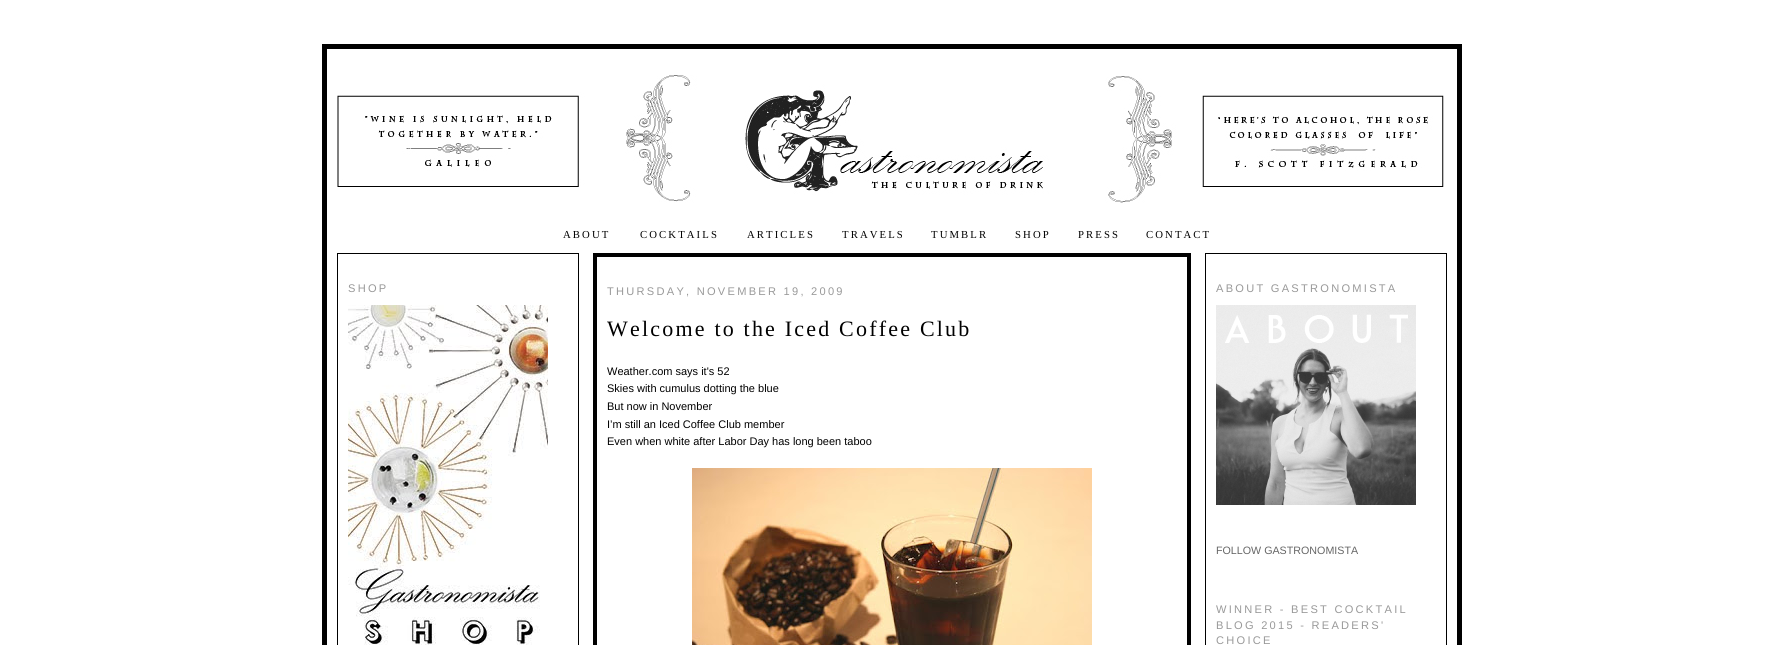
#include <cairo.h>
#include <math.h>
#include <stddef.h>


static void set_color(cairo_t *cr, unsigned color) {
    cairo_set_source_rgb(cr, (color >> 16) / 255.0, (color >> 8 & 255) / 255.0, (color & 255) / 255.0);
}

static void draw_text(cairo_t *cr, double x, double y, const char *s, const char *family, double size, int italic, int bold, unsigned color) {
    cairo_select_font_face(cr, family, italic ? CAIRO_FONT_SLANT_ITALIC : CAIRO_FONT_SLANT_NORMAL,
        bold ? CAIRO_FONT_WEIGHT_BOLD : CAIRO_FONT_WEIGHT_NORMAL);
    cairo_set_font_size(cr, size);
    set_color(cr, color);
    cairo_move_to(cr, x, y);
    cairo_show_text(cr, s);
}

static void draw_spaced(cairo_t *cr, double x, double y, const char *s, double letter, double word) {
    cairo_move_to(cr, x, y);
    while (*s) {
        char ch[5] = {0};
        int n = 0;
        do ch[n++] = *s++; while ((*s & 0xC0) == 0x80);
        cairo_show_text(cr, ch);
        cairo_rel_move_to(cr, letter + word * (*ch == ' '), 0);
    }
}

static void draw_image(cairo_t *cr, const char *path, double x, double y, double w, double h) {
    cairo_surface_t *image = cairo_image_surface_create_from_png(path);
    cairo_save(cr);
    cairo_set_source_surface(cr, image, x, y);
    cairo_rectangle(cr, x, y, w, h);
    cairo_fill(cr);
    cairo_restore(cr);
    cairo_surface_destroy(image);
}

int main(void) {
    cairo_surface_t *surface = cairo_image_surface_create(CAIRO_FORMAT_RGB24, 1783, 645);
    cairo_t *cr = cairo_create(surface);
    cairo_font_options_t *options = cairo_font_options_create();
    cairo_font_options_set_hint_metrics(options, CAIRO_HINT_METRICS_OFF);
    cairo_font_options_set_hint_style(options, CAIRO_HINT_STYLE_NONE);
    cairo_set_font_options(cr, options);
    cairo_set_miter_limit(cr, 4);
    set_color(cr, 0xFFFFFF);
    cairo_paint(cr);
    cairo_rectangle(cr, 324.5, 46.5, 1135, 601);
    set_color(cr, 0x000000);
    cairo_set_line_width(cr, 5);
    cairo_stroke(cr);
    draw_image(cr, "assets/img1.png", 337, 75, 1107, 128);
    cairo_select_font_face(cr, "Liberation Serif", CAIRO_FONT_SLANT_NORMAL, CAIRO_FONT_WEIGHT_NORMAL);
    cairo_set_font_size(cr, 10.7);
    draw_spaced(cr, 563, 238, "ABOUT", 2.1, 0);
    draw_spaced(cr, 640, 238, "COCKTAILS", 2.1, 0);
    draw_spaced(cr, 747, 238, "ARTICLES", 2.1, 0);
    draw_spaced(cr, 842, 238, "TRAVELS", 2.1, 0);
    draw_spaced(cr, 931, 238, "TUMBLR", 2.1, 0);
    draw_spaced(cr, 1015, 238, "SHOP", 2.1, 0);
    draw_spaced(cr, 1078, 238, "PRESS", 2.1, 0);
    draw_spaced(cr, 1146, 238, "CONTACT", 2.1, 0);
    cairo_rectangle(cr, 337.5, 253.5, 241, 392);
    cairo_set_line_width(cr, 1);
    cairo_stroke(cr);
    cairo_select_font_face(cr, "Liberation Sans", CAIRO_FONT_SLANT_NORMAL, CAIRO_FONT_WEIGHT_NORMAL);
    cairo_set_font_size(cr, 11.1);
    set_color(cr, 0x999999);
    draw_spaced(cr, 348, 292, "SHOP", 2.25, 0);
    draw_image(cr, "assets/img2.png", 348, 305, 200, 340);
    cairo_rectangle(cr, 595, 255, 594, 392);
    set_color(cr, 0x000000);
    cairo_set_line_width(cr, 4);
    cairo_stroke(cr);
    set_color(cr, 0x999999);
    draw_spaced(cr, 607, 295, "THURSDAY, NOVEMBER 19, 2009", 2.25, 0);
    cairo_select_font_face(cr, "Liberation Serif", CAIRO_FONT_SLANT_NORMAL, CAIRO_FONT_WEIGHT_NORMAL);
    cairo_set_font_size(cr, 22);
    set_color(cr, 0x000000);
    draw_spaced(cr, 607, 336, "Welcome to the Iced Coffee Club", 2.2, 0);
    draw_text(cr, 607, 375, "Weather.com says it's 52", "Liberation Sans", 11, 0, 0, 0x000000);
    draw_text(cr, 607, 392, "Skies with cumulus dotting the blue", "Liberation Sans", 11, 0, 0, 0x000000);
    draw_text(cr, 607, 410, "But now in November", "Liberation Sans", 11, 0, 0, 0x000000);
    draw_text(cr, 607, 428, "I’m still an Iced Coffee Club member", "Liberation Sans", 11, 0, 0, 0x000000);
    draw_text(cr, 607, 445, "Even when white after Labor Day has long been taboo", "Liberation Sans", 11, 0, 0, 0x000000);
    draw_image(cr, "assets/img3.png", 692, 468, 400, 177);
    cairo_rectangle(cr, 1205.5, 253.5, 241, 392);
    cairo_set_line_width(cr, 1);
    cairo_stroke(cr);
    cairo_set_font_size(cr, 11.1);
    set_color(cr, 0x999999);
    draw_spaced(cr, 1216, 292, "ABOUT GASTRONOMISTA", 2.25, 0);
    draw_image(cr, "assets/img4.png", 1216, 305, 200, 200);
    draw_text(cr, 1216, 554, "FOLLOW GASTRONOMISTA", "Liberation Sans", 10.7, 0, 0, 0x666666);
    cairo_set_font_size(cr, 11.1);
    set_color(cr, 0x999999);
    draw_spaced(cr, 1216, 613, "WINNER - BEST COCKTAIL", 2.25, 0);
    draw_spaced(cr, 1216, 629, "BLOG 2015 - READERS'", 2.25, 0);
    draw_spaced(cr, 1216, 644, "CHOICE", 2.25, 0);
    cairo_surface_write_to_png(surface, "output.png");
    cairo_font_options_destroy(options);
    cairo_destroy(cr);
    cairo_surface_destroy(surface);
    return 0;
}
